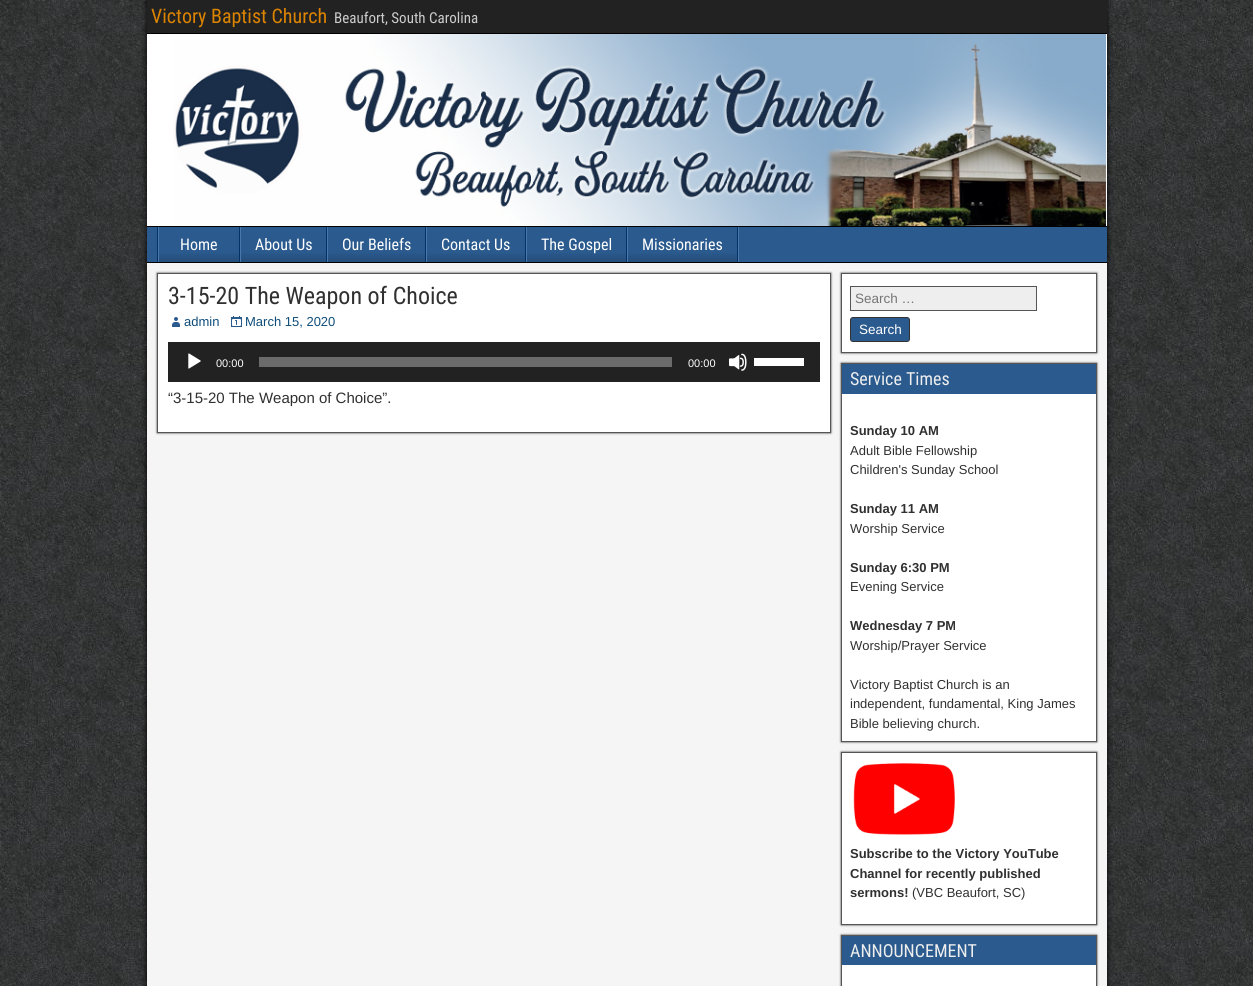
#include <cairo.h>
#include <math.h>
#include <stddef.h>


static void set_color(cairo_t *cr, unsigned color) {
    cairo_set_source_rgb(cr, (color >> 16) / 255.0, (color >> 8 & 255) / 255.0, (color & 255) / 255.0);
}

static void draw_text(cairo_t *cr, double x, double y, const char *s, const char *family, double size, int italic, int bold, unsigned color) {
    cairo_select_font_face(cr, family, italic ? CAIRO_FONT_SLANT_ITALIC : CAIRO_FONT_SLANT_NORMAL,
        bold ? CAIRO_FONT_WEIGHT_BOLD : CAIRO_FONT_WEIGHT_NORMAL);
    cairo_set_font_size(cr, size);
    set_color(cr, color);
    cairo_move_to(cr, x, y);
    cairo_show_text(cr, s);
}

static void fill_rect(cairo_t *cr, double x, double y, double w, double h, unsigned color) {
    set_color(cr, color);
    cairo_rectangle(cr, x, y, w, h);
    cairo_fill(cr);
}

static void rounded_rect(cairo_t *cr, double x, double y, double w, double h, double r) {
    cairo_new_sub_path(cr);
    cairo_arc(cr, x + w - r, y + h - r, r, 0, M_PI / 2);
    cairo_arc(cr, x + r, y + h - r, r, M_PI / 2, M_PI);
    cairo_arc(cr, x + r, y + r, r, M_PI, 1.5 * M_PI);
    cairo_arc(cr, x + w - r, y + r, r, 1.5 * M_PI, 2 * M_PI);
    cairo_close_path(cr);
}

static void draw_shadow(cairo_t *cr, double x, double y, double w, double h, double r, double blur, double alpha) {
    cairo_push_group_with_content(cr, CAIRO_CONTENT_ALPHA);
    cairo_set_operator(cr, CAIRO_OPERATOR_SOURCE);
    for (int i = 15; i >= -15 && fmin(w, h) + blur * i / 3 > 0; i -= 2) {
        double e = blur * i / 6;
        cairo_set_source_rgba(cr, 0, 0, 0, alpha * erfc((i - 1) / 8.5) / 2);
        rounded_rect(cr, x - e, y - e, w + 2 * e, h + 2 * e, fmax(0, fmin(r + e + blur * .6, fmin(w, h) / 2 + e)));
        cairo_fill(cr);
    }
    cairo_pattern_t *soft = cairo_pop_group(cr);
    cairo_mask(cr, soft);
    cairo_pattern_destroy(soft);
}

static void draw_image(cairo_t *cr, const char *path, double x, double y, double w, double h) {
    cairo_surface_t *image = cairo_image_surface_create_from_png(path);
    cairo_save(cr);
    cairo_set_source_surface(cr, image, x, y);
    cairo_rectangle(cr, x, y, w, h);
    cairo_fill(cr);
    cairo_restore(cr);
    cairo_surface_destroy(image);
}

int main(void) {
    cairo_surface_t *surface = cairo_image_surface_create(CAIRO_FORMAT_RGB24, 1253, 986);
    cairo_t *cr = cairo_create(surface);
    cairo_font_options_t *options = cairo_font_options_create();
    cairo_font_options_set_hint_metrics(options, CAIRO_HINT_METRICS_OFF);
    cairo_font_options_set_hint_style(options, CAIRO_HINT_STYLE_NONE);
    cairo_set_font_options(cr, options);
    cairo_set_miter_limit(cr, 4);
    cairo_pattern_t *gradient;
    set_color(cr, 0xFFFFFF);
    cairo_paint(cr);
    draw_image(cr, "assets/img1.png", 0, 0, 1253, 986);
    set_color(cr, 0x000000);
    draw_shadow(cr, 147, 0, 960, 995, 0, 3, 1);
    fill_rect(cr, 147, 0, 960, 33, 0x222222);
    fill_rect(cr, 147, 33, 960, 1, 0x000000);
    draw_text(cr, 151, 23, "Victory Baptist Church", "Roboto Condensed", 20, 0, 0, 0xDC8300);
    draw_text(cr, 334, 23, "Beaufort, South Carolina", "Roboto Condensed", 15, 0, 0, 0xCCCCCC);
    fill_rect(cr, 147, 34, 960, 192, 0xFFFFFF);
    fill_rect(cr, 147, 226, 960, 1, 0x000000);
    draw_image(cr, "assets/img2.png", 173, 34, 933, 192);
    fill_rect(cr, 147, 227, 960, 35, 0x2A5A8E);
    fill_rect(cr, 147, 262, 960, 1, 0x000000);
    fill_rect(cr, 738, 227, 1, 35, 0x4878AC);
    fill_rect(cr, 157, 227, 1, 35, 0x023266);
    gradient = cairo_pattern_create_linear(199, 227, 199, 262);
    cairo_pattern_add_color_stop_rgba(gradient, 0.7, 0.165, 0.353, 0.557, 1);
    cairo_pattern_add_color_stop_rgba(gradient, 1, 0.141, 0.302, 0.475, 1);
    cairo_set_source(cr, gradient);
    cairo_pattern_destroy(gradient);
    cairo_rectangle(cr, 159, 253, 80, 9);
    cairo_fill(cr);
    fill_rect(cr, 239, 227, 1, 35, 0x023266);
    fill_rect(cr, 158, 227, 1, 35, 0x4878AC);
    draw_text(cr, 180, 250, "Home", "Roboto Condensed", 16, 0, 0, 0xFFFFFF);
    gradient = cairo_pattern_create_linear(284, 227, 284, 262);
    cairo_pattern_add_color_stop_rgba(gradient, 0.7, 0.165, 0.353, 0.557, 1);
    cairo_pattern_add_color_stop_rgba(gradient, 1, 0.141, 0.302, 0.475, 1);
    cairo_set_source(cr, gradient);
    cairo_pattern_destroy(gradient);
    cairo_rectangle(cr, 241, 253, 85, 9);
    cairo_fill(cr);
    fill_rect(cr, 326, 227, 1, 35, 0x023266);
    fill_rect(cr, 240, 227, 1, 35, 0x4878AC);
    draw_text(cr, 255, 250, "About Us", "Roboto Condensed", 16, 0, 0, 0xFFFFFF);
    gradient = cairo_pattern_create_linear(377, 227, 377, 262);
    cairo_pattern_add_color_stop_rgba(gradient, 0.7, 0.165, 0.353, 0.557, 1);
    cairo_pattern_add_color_stop_rgba(gradient, 1, 0.141, 0.302, 0.475, 1);
    cairo_set_source(cr, gradient);
    cairo_pattern_destroy(gradient);
    cairo_rectangle(cr, 328, 253, 97, 9);
    cairo_fill(cr);
    fill_rect(cr, 425, 227, 1, 35, 0x023266);
    fill_rect(cr, 327, 227, 1, 35, 0x4878AC);
    draw_text(cr, 342, 250, "Our Beliefs", "Roboto Condensed", 16, 0, 0, 0xFFFFFF);
    gradient = cairo_pattern_create_linear(476, 227, 476, 262);
    cairo_pattern_add_color_stop_rgba(gradient, 0.7, 0.165, 0.353, 0.557, 1);
    cairo_pattern_add_color_stop_rgba(gradient, 1, 0.141, 0.302, 0.475, 1);
    cairo_set_source(cr, gradient);
    cairo_pattern_destroy(gradient);
    cairo_rectangle(cr, 427, 253, 98, 9);
    cairo_fill(cr);
    fill_rect(cr, 525, 227, 1, 35, 0x023266);
    fill_rect(cr, 426, 227, 1, 35, 0x4878AC);
    draw_text(cr, 441, 250, "Contact Us", "Roboto Condensed", 16, 0, 0, 0xFFFFFF);
    gradient = cairo_pattern_create_linear(577, 227, 577, 262);
    cairo_pattern_add_color_stop_rgba(gradient, 0.7, 0.165, 0.353, 0.557, 1);
    cairo_pattern_add_color_stop_rgba(gradient, 1, 0.141, 0.302, 0.475, 1);
    cairo_set_source(cr, gradient);
    cairo_pattern_destroy(gradient);
    cairo_rectangle(cr, 527, 253, 99, 9);
    cairo_fill(cr);
    fill_rect(cr, 626, 227, 1, 35, 0x023266);
    fill_rect(cr, 526, 227, 1, 35, 0x4878AC);
    draw_text(cr, 541, 250, "The Gospel", "Roboto Condensed", 16, 0, 0, 0xFFFFFF);
    gradient = cairo_pattern_create_linear(683, 227, 683, 262);
    cairo_pattern_add_color_stop_rgba(gradient, 0.7, 0.165, 0.353, 0.557, 1);
    cairo_pattern_add_color_stop_rgba(gradient, 1, 0.141, 0.302, 0.475, 1);
    cairo_set_source(cr, gradient);
    cairo_pattern_destroy(gradient);
    cairo_rectangle(cr, 628, 253, 109, 9);
    cairo_fill(cr);
    fill_rect(cr, 737, 227, 1, 35, 0x023266);
    fill_rect(cr, 627, 227, 1, 35, 0x4878AC);
    draw_text(cr, 642, 250, "Missionaries", "Roboto Condensed", 16, 0, 0, 0xFFFFFF);
    fill_rect(cr, 147, 263, 960, 723, 0xF5F5F5);
    set_color(cr, 0x333333);
    draw_shadow(cr, 157, 273, 674, 160, 0, 1, 1);
    set_color(cr, 0xFFFFFF);
    cairo_rectangle(cr, 157.5, 273.5, 673, 159);
    cairo_fill_preserve(cr);
    set_color(cr, 0x555555);
    cairo_set_line_width(cr, 1);
    cairo_stroke(cr);
    draw_text(cr, 168, 304, "3-15-20 The Weapon of Choice", "Roboto Condensed", 24, 0, 0, 0x303030);
    draw_image(cr, "assets/img3.png", 172, 317, 8, 10);
    draw_text(cr, 184, 326, "admin", "Liberation Sans", 13, 0, 0, 0x0E4D7A);
    draw_image(cr, "assets/img4.png", 231, 316, 11, 11);
    draw_text(cr, 245, 326, "March 15, 2020", "Liberation Sans", 13, 0, 0, 0x0E4D7A);
    fill_rect(cr, 168, 342, 652, 40, 0x222222);
    draw_image(cr, "assets/img5.png", 188, 353, 13, 16);
    draw_text(cr, 216, 367, "00:00", "Liberation Sans", 11, 0, 0, 0xFFFFFF);
    fill_rect(cr, 259, 357, 413, 10, 0x6B6B6B);
    draw_text(cr, 688, 367, "00:00", "Liberation Sans", 11, 0, 0, 0xFFFFFF);
    draw_image(cr, "assets/img6.png", 729, 353, 18, 18);
    fill_rect(cr, 754, 358, 50, 8, 0xFFFFFF);
    draw_text(cr, 168, 403, "“3-15-20 The Weapon of Choice”.", "Arimo", 15, 0, 0, 0x303030);
    set_color(cr, 0x333333);
    draw_shadow(cr, 841, 273, 256, 80, 0, 1, 1);
    set_color(cr, 0xFFFFFF);
    cairo_rectangle(cr, 841.5, 273.5, 255, 79);
    cairo_fill_preserve(cr);
    set_color(cr, 0x555555);
    cairo_stroke(cr);
    set_color(cr, 0xEEEEEE);
    cairo_rectangle(cr, 850.5, 286.5, 186, 24);
    cairo_fill_preserve(cr);
    set_color(cr, 0x555555);
    cairo_stroke(cr);
    draw_text(cr, 855, 303, "Search …", "Liberation Sans", 13.5, 0, 0, 0x757575);
    set_color(cr, 0x2A5A8E);
    rounded_rect(cr, 850.5, 317.5, 59, 24, 2.5);
    cairo_fill_preserve(cr);
    set_color(cr, 0x333333);
    cairo_stroke(cr);
    draw_text(cr, 859, 334, "Search", "Liberation Sans", 13.5, 0, 0, 0xFFFFFF);
    set_color(cr, 0x333333);
    draw_shadow(cr, 841, 363, 256, 379, 0, 1, 1);
    fill_rect(cr, 842, 394, 254, 347, 0xFFFFFF);
    cairo_rectangle(cr, 841.5, 363.5, 255, 378);
    set_color(cr, 0x555555);
    cairo_stroke(cr);
    fill_rect(cr, 842, 364, 254, 30, 0x2A5A8E);
    draw_text(cr, 850, 385, "Service Times", "Roboto Condensed", 18, 0, 0, 0xEEEEEE);
    draw_text(cr, 850, 435, "Sunday 10 AM", "Liberation Sans", 13, 0, 1, 0x303030);
    draw_text(cr, 850, 455, "Adult Bible Fellowship", "Liberation Sans", 13, 0, 0, 0x303030);
    draw_text(cr, 850, 474, "Children's Sunday School", "Liberation Sans", 13, 0, 0, 0x303030);
    draw_text(cr, 850, 513, "Sunday 11 AM", "Liberation Sans", 13, 0, 1, 0x303030);
    draw_text(cr, 850, 533, "Worship Service", "Liberation Sans", 13, 0, 0, 0x303030);
    draw_text(cr, 850, 572, "Sunday 6:30 PM", "Liberation Sans", 13, 0, 1, 0x303030);
    draw_text(cr, 850, 591, "Evening Service", "Liberation Sans", 13, 0, 0, 0x303030);
    draw_text(cr, 850, 630, "Wednesday 7 PM", "Liberation Sans", 13, 0, 1, 0x303030);
    draw_text(cr, 850, 650, "Worship/Prayer Service", "Liberation Sans", 13, 0, 0, 0x303030);
    draw_text(cr, 850, 689, "Victory Baptist Church is an", "Liberation Sans", 13, 0, 0, 0x303030);
    draw_text(cr, 850, 708, "independent, fundamental, King James", "Liberation Sans", 13, 0, 0, 0x303030);
    draw_text(cr, 850, 728, "Bible believing church.", "Liberation Sans", 13, 0, 0, 0x303030);
    set_color(cr, 0x333333);
    draw_shadow(cr, 841, 752, 256, 173, 0, 1, 1);
    set_color(cr, 0xFFFFFF);
    cairo_rectangle(cr, 841.5, 752.5, 255, 172);
    cairo_fill_preserve(cr);
    set_color(cr, 0x555555);
    cairo_stroke(cr);
    draw_image(cr, "assets/img7.png", 853, 763, 102, 72);
    draw_text(cr, 850, 858, "Subscribe to the Victory YouTube", "Liberation Sans", 13, 0, 1, 0x303030);
    draw_text(cr, 850, 878, "Channel for recently published", "Liberation Sans", 13, 0, 1, 0x303030);
    draw_text(cr, 850, 897, "sermons!", "Liberation Sans", 13, 0, 1, 0x303030);
    draw_text(cr, 912, 897, "(VBC Beaufort, SC)", "Liberation Sans", 13, 0, 0, 0x303030);
    set_color(cr, 0x333333);
    draw_shadow(cr, 841, 935, 256, 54, 0, 1, 1);
    fill_rect(cr, 842, 965, 254, 21, 0xFFFFFF);
    cairo_rectangle(cr, 841.5, 935.5, 255, 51);
    set_color(cr, 0x555555);
    cairo_stroke(cr);
    fill_rect(cr, 842, 936, 254, 29, 0x2A5A8E);
    draw_text(cr, 850, 957, "ANNOUNCEMENT", "Roboto Condensed", 18, 0, 0, 0xEEEEEE);
    cairo_surface_write_to_png(surface, "output.png");
    cairo_font_options_destroy(options);
    cairo_destroy(cr);
    cairo_surface_destroy(surface);
    return 0;
}
